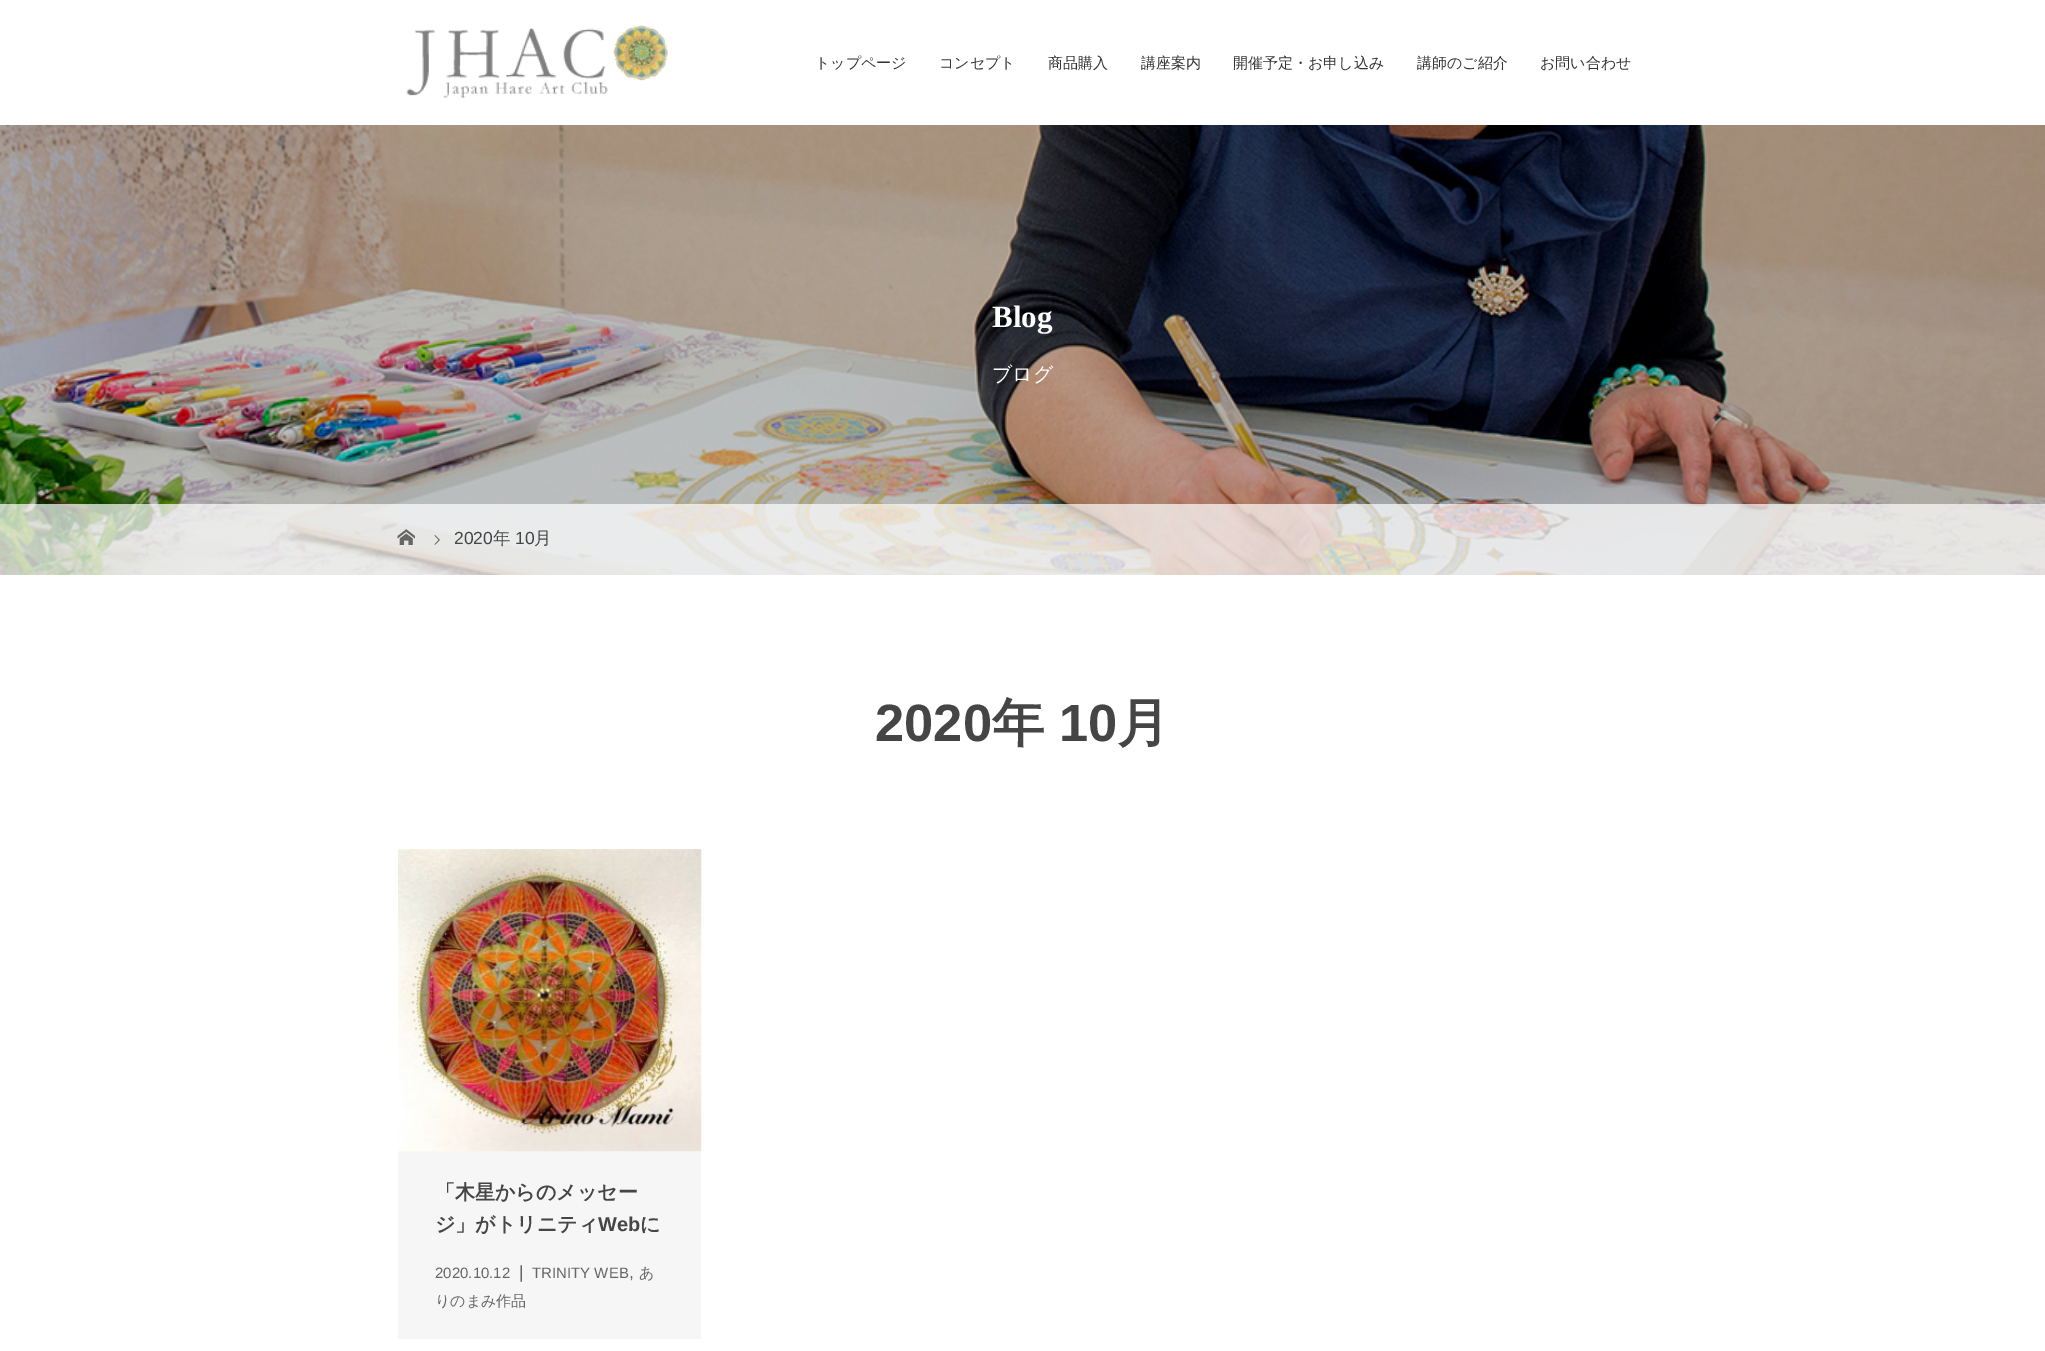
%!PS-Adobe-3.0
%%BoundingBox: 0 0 2045 1351
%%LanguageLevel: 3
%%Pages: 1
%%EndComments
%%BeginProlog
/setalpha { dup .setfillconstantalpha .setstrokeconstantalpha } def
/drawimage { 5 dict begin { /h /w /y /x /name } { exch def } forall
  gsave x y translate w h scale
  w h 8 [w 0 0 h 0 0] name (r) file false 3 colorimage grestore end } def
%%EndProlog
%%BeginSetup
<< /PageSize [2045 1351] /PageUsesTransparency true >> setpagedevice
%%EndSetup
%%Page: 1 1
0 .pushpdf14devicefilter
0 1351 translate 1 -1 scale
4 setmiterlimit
1 setgray
0 0 2045 1351 rectfill
(images/1.raw) 406 25 262 73 drawimage
(images/2.raw) 0 125 2045 450 drawimage
0.7 setalpha
0 504 2045 71 rectfill
1 setalpha
(images/3.raw) 397 529 18 16 drawimage
(images/4.raw) 434 535 6 10 drawimage
0.965 setgray
398 849 303 490 rectfill
(images/5.raw) 398 849 304 303 drawimage
/WenQuanYiZenHei-Medium [15 0 0 -15 0 0] selectfont
0.2 setgray
815 68 moveto (トップページ) show
939 68 moveto (コンセプト) show
1048 68 moveto (商品購入) show
1141 68 moveto (講座案内) show
1233 68 moveto (開催予定・お申し込み) show
1417 68 moveto (講師のご紹介) show
1540 68 moveto (お問い合わせ) show
/LiberationSerif-Bold [31 0 0 -31 0 0] selectfont
1 setgray
992 327 moveto (Blog) show
/WenQuanYiZenHei-Medium [20 0 0 -20 0 0] selectfont
992 381 moveto (ブログ) show
/LiberationSans-Regular [17.5 0 0 -17.5 0 0] selectfont
0.271 setgray
454 544 moveto (2020) show
/WenQuanYiZenHei-Medium [17.5 0 0 -17.5 0 0] selectfont
493 544 moveto (年) show
/LiberationSans-Regular [17.5 0 0 -17.5 0 0] selectfont
515 544 moveto (10) show
/WenQuanYiZenHei-Medium [17.5 0 0 -17.5 0 0] selectfont
534 544 moveto (月) show
/LiberationSans-Bold [52.5 0 0 -52.5 0 0] selectfont
875 741 moveto (2020) show
/WenQuanYiZenHei-Bold [52.5 0 0 -52.5 0 0] selectfont
992 741 moveto (年) show
/LiberationSans-Bold [52.5 0 0 -52.5 0 0] selectfont
1059 741 moveto (10) show
/WenQuanYiZenHei-Bold [52.5 0 0 -52.5 0 0] selectfont
1117 741 moveto (月) show
/WenQuanYiZenHei-Bold [20 0 0 -20 0 0] selectfont
435 1199 moveto (「木星からのメッセー) show
435 1231 moveto (ジ」がトリニティ) show
/LiberationSans-Bold [20 0 0 -20 0 0] selectfont
598 1231 moveto (Web) show
/WenQuanYiZenHei-Bold [20 0 0 -20 0 0] selectfont
640 1231 moveto (に) show
/LiberationSans-Regular [15 0 0 -15 0 0] selectfont
0.4 setgray
435 1278 moveto (2020.10.12) show
/LiberationSans-Regular [17.5 0 0 -17.5 0 0] selectfont
519 1278 moveto (|) show
/LiberationSans-Regular [15 0 0 -15 0 0] selectfont
532 1278 moveto (TRINITY WEB) show
/WenQuanYiZenHei-Medium [15 0 0 -15 0 0] selectfont
639 1278 moveto (あ) show
/LiberationSans-Regular [17.5 0 0 -17.5 0 0] selectfont
629 1278 moveto (,) show
/WenQuanYiZenHei-Medium [15 0 0 -15 0 0] selectfont
435 1306 moveto (りのまみ作品) show
.poppdf14devicefilter showpage
%%EOF
